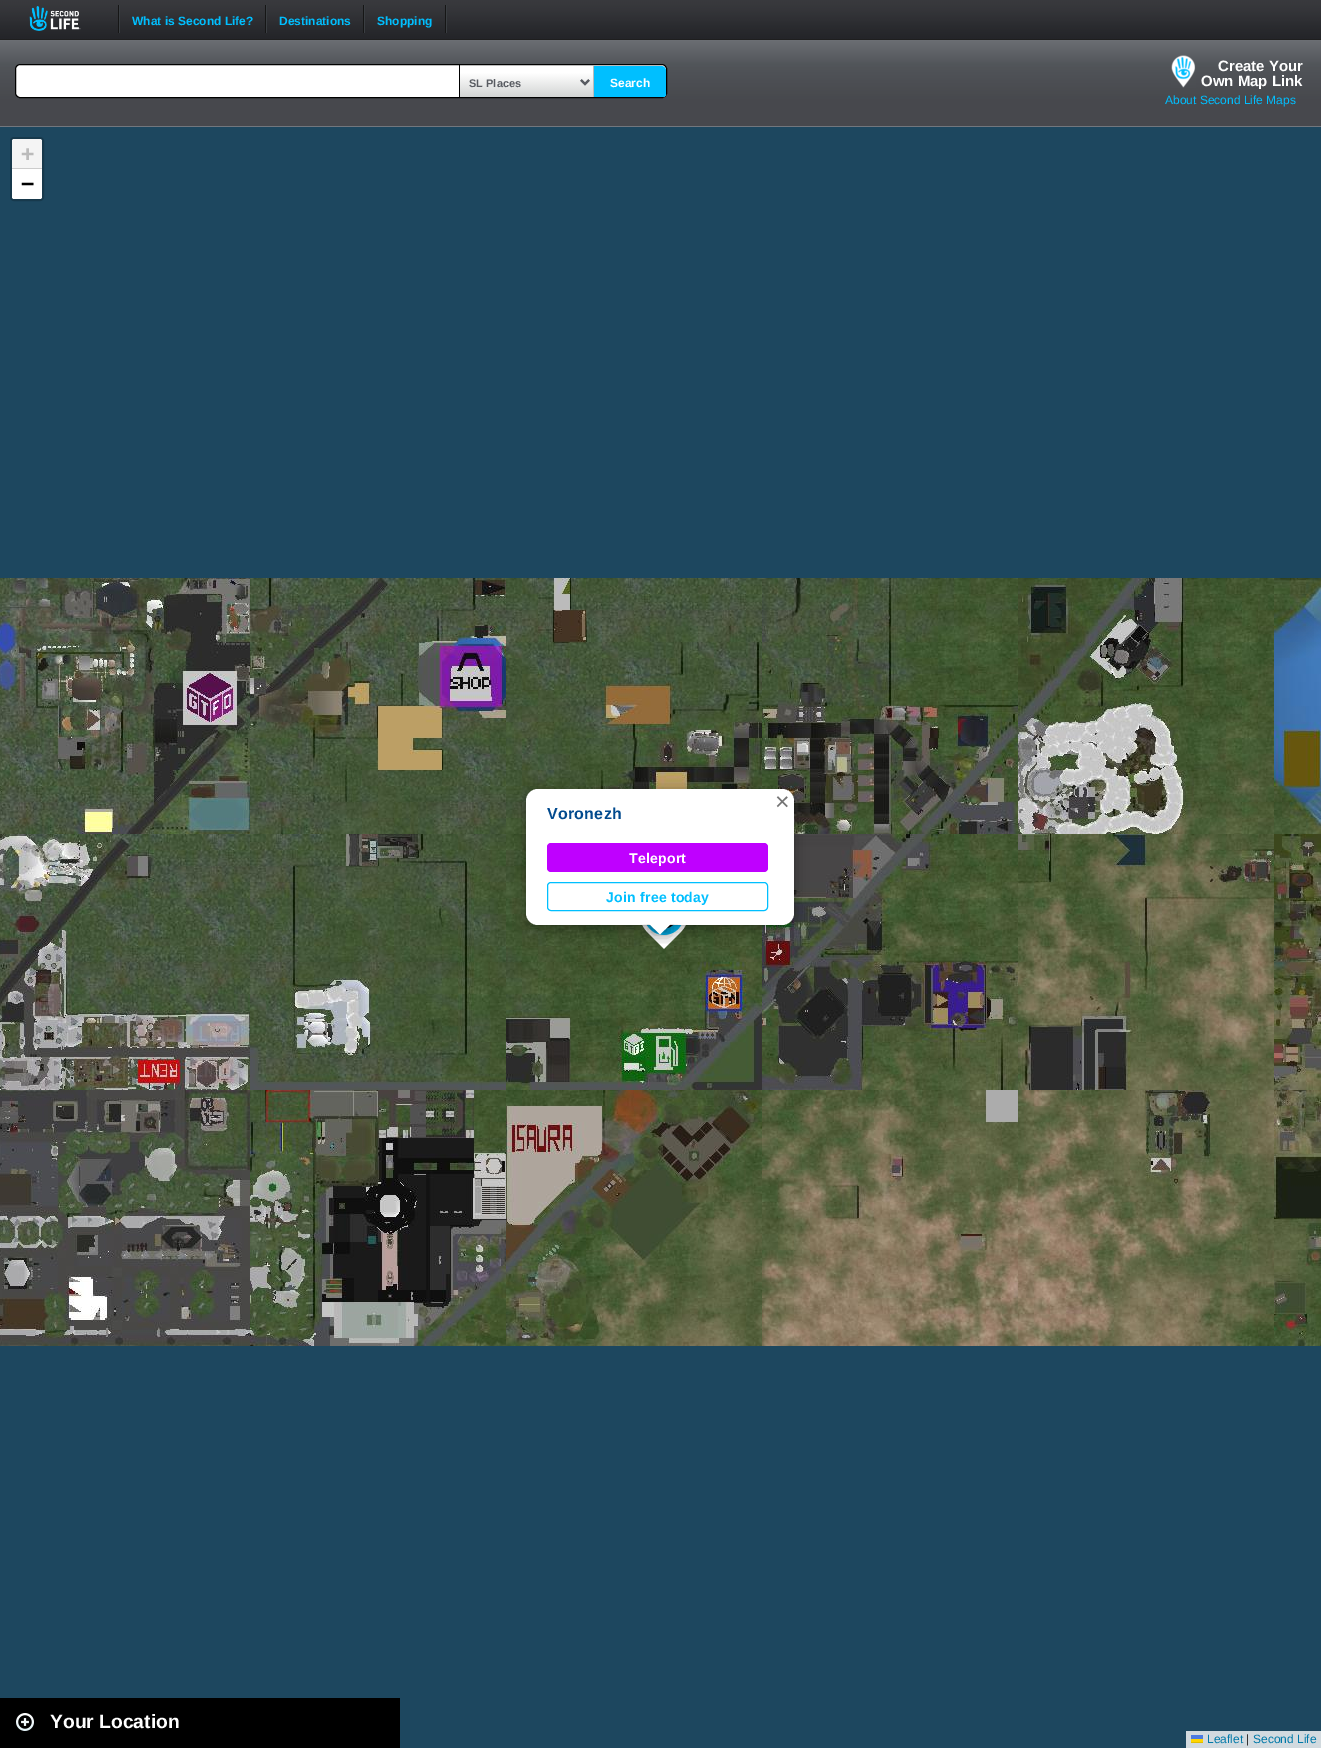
%!PS-Adobe-3.0
%%BoundingBox: 0 0 1321 1748
%%LanguageLevel: 3
%%Pages: 1
%%EndComments
%%BeginProlog
/setalpha { dup .setfillconstantalpha .setstrokeconstantalpha } def
/rrect { 5 dict begin { /r /h /w /y /x } { exch def } forall
  x r add y moveto x w add y 2 copy h add r arct x w add y h add x 1 index r arct
  x y h add x y r arct x y 2 copy exch w add exch r arct closepath end } def
/softshadow { 12 dict begin { /a /b /q /h /w /y /x } { exch def } forall gsave /was 0 def
  9 -2 -9 { dup b mul 4 div /e exch def 1 sub .425 mul 2.718 exch exp 1 add a .99 .min exch div /now exch def
    1 1 now sub 1 was sub div sub setalpha /was now def
    w h .min e 2 mul add 0 gt { x e sub y e sub w e 2 mul add h e 2 mul add
      q e add b .6 mul add w h .min 2 div e add .min 0 .max rrect fill } if } for grestore end } def
/drawimage { 5 dict begin { /h /w /y /x /name } { exch def } forall
  gsave x y translate w h scale
  w h 8 [w 0 0 h 0 0] name (r) file false 3 colorimage grestore end } def
%%EndProlog
%%BeginSetup
<< /PageSize [1321 1748] /PageUsesTransparency true >> setpagedevice
%%EndSetup
%%Page: 1 1
0 .pushpdf14devicefilter
0 1748 translate 1 -1 scale
4 setmiterlimit
0.114 0.278 0.373 setrgbcolor
0 0 1321 1748 rectfill
(images/1.raw) 0 0 1321 40 drawimage
(images/2.raw) 29 6 52 25 drawimage
0.227 0.243 0.259 setrgbcolor
119 5 1 28 rectfill
0.086 setgray
118 5 1 28 rectfill
0.227 0.243 0.259 setrgbcolor
266 5 1 28 rectfill
0.086 setgray
265 5 1 28 rectfill
0.227 0.243 0.259 setrgbcolor
364 5 1 28 rectfill
0.086 setgray
363 5 1 28 rectfill
0.227 0.243 0.259 setrgbcolor
446 5 1 28 rectfill
0.086 setgray
445 5 1 28 rectfill
gsave newpath 0 40 moveto 1321 40 lineto 1321 126 lineto 0 126 lineto closepath clip newpath
<< /ShadingType 2 /ColorSpace /DeviceRGB /Coords [0 126 0 40] /Extend [true true] /Function << /FunctionType 3 /Domain [0 1] /Functions [<< /FunctionType 2 /Domain [0 1] /C0 [0.278 0.282 0.302] /C1 [0.278 0.282 0.302] /N 1 >> << /FunctionType 2 /Domain [0 1] /C0 [0.278 0.282 0.302] /C1 [0.318 0.333 0.349] /N 1 >> << /FunctionType 2 /Domain [0 1] /C0 [0.318 0.333 0.349] /C1 [0.42 0.431 0.451] /N 1 >>] /Bounds [0.29 0.71] /Encode [0 1 0 1 0 1] >> >> shfill grestore
0.447 0.467 0.494 setrgbcolor
0 126 1321 1 rectfill
1 setgray
15.5 64.5 651 33 4.5 rrect gsave fill grestore
0 setgray
stroke
(images/3.raw) 460 66 133 31 drawimage
0.733 setgray
459 65 135 1 rectfill
593 65 1 32 rectfill
0 setgray
459 65 1 32 rectfill
0.349 0.361 0.384 setrgbcolor
2 setlinewidth
newpath 581 80 moveto 585 84 lineto 589 80 lineto stroke
gsave
16 65 650 32 4 rrect clip newpath
0 0.749 1 setrgbcolor
newpath 594 66 moveto 661 66 lineto 664 66 666 68 666 71 curveto 666 95 lineto 666 98 664 100 661 100 curveto 594 100 lineto closepath fill
grestore
(images/4.raw) 1171 55 25 33 drawimage
0.09 0.224 0.298 setrgbcolor
11 138 32 62 3 rrect stroke
0.957 setgray
newpath 14 139 moveto 40 139 lineto 41 139 42 140 42 141 curveto 42 169 lineto 12 169 lineto 12 141 lineto 12 140 13 139 14 139 curveto closepath fill
0.8 setgray
12 168 30 1 rectfill
1 setgray
newpath 12 169 moveto 42 169 lineto 42 197 lineto 42 198 41 199 40 199 curveto 14 199 lineto 13 199 12 198 12 197 curveto closepath fill
0.824 0.855 0.875 setrgbcolor
1186 1731 135 17 rectfill
0.298 0.482 0.882 setrgbcolor
1191 1735 12 4 rectfill
1 0.835 0 setrgbcolor
1191 1739 12 3 rectfill
0.878 0.737 0 setrgbcolor
1191 1742 12 1 rectfill
(images/5.raw) 0 578 250 256 drawimage
(images/6.raw) 250 578 256 256 drawimage
(images/7.raw) 506 578 256 256 drawimage
(images/8.raw) 762 578 256 256 drawimage
(images/9.raw) 1018 578 256 256 drawimage
(images/10.raw) 1274 578 47 256 drawimage
(images/11.raw) 0 834 250 256 drawimage
(images/12.raw) 250 834 256 256 drawimage
(images/13.raw) 506 834 256 256 drawimage
(images/14.raw) 762 834 256 256 drawimage
(images/15.raw) 1018 834 256 256 drawimage
(images/16.raw) 1274 834 47 256 drawimage
(images/17.raw) 0 1090 250 256 drawimage
(images/18.raw) 250 1090 256 256 drawimage
(images/19.raw) 506 1090 256 256 drawimage
(images/20.raw) 762 1090 256 256 drawimage
(images/21.raw) 1018 1090 256 256 drawimage
(images/22.raw) 1274 1090 47 256 drawimage
(images/23.raw) 642 925 44 24 drawimage
0 setgray
526 792 268 136 12 7 0.4 softshadow
1 setgray
526 789 268 136 12 rrect fill
0.749 0 1 setrgbcolor
547 843 221 29 4 rrect fill
0 0.749 1 setrgbcolor
1 setlinewidth
547.5 882.5 220 28 3.5 rrect stroke
gsave
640 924 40 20 rectclip
0 setgray
652 917 17 17 0 7 0.4 softshadow
grestore
gsave
640 924 40 20 rectclip
1 setgray
newpath 660 910.5 moveto 672 922.5 lineto 660 934.5 lineto 648 922.5 lineto closepath fill
grestore
0 setgray
0 1698 400 50 rectfill
(images/24.raw) 16 1713 18 18 drawimage
/LiberationSans-Bold [12 0 0 -12 0 0] selectfont
0 0.749 1 setrgbcolor
132 25 moveto (What is Second Life?) show
279 25 moveto (Destinations) show
377 25 moveto (Shopping) show
/LiberationSans-Bold [11 0 0 -11 0 0] selectfont
0.349 0.361 0.384 setrgbcolor
469 87 moveto (SL Places) show
/LiberationSans-Bold [12 0 0 -12 0 0] selectfont
1 setgray
610 87 moveto (Search) show
/LiberationSans-Bold [15 0 0 -15 0 0] selectfont
1218 71 moveto (Create Your) show
1201 86 moveto (Own Map Link) show
/LiberationSans-Regular [12 0 0 -12 0 0] selectfont
0 0.749 1 setrgbcolor
1165 104 moveto (About Second Life Maps) show
/DejaVuSansMono-Bold [22 0 0 -22 0 0] selectfont
0.733 setgray
21 161 moveto (+) show
0 setgray
21 191 moveto (−) show
/LiberationSans-Regular [12 0 0 -12 0 0] selectfont
0 0.471 0.659 setrgbcolor
1207 1743 moveto (Leaflet) show
0.2 setgray
1246 1743 moveto (|) show
0 0.471 0.659 setrgbcolor
1253 1743 moveto (Second Life) show
/LiberationSans-Regular [25 0 0 -25 0 0] selectfont
0.459 setgray
775 810 moveto (×) show
/LiberationSans-Bold [16 0 0 -16 0 0] selectfont
0.004 0.29 0.557 setrgbcolor
547 819 moveto 0.25 0 (Voronezh) ashow
/LiberationSans-Bold [14 0 0 -14 0 0] selectfont
1 setgray
629 863 moveto 0.25 0 (Teleport) ashow
0 0.749 1 setrgbcolor
606 902 moveto 0.25 0 (Join free today) ashow
/LiberationSans-Bold [19.25 0 0 -19.25 0 0] selectfont
1 setgray
50 1728 moveto (Your Location) show
.poppdf14devicefilter showpage
%%EOF
